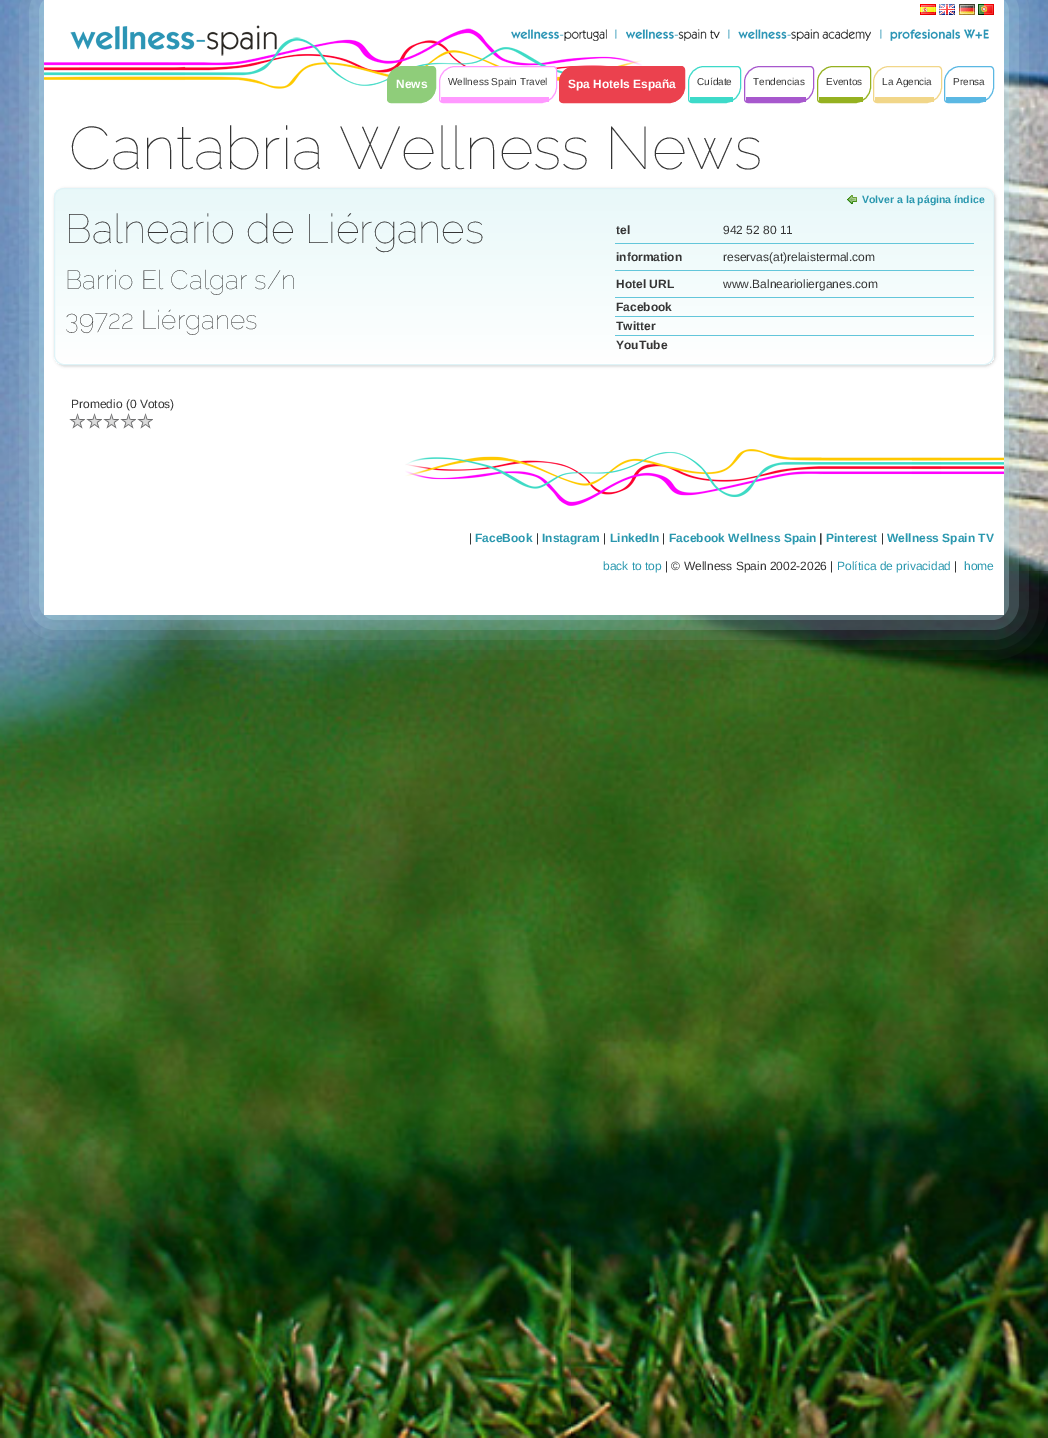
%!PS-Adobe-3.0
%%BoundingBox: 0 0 1048 1438
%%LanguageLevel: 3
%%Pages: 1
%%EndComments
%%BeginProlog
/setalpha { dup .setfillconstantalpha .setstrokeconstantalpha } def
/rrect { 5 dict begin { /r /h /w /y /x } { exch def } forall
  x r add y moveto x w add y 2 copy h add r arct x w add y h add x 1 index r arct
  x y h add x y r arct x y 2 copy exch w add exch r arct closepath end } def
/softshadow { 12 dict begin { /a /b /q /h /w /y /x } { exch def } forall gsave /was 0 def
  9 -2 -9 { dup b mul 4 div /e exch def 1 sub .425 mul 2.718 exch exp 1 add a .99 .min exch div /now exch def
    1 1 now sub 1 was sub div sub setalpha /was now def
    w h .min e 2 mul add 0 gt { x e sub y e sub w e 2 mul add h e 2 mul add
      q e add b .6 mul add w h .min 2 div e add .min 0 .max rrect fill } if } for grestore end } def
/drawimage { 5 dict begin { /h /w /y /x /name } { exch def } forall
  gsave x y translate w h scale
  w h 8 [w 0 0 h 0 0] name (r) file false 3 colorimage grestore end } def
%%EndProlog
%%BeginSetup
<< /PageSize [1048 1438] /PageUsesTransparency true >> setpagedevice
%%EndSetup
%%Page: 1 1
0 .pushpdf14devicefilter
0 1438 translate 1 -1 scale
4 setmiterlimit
1 setgray
0 0 1048 1438 rectfill
(images/1.raw) 0 0 1048 1438 drawimage
0.71 0.894 0.933 setrgbcolor
44 0 960 615 0 20 1 softshadow
1 setgray
44 0 960 615 rectfill
(images/2.raw) 44 25 598 64 drawimage
(images/3.raw) 920 4 16 11 drawimage
(images/4.raw) 939 4 16 11 drawimage
(images/5.raw) 959 4 16 11 drawimage
(images/6.raw) 978 4 16 11 drawimage
(images/7.raw) 511 29 96 12 drawimage
(images/8.raw) 615 29 2 10 drawimage
(images/9.raw) 626 29 94 12 drawimage
(images/8.raw) 728 29 2 10 drawimage
(images/10.raw) 738 29 133 12 drawimage
(images/8.raw) 880 29 2 10 drawimage
(images/11.raw) 890 29 99 12 drawimage
0.561 0.804 0.478 setrgbcolor
newpath 403 66.5 moveto 432 66.5 lineto 434 66.5 435.5 68 435.5 70 curveto 435.5 87 lineto 435.5 95.5 428.5 102.5 420 102.5 curveto 391 102.5 lineto 389 102.5 387.5 101 387.5 99 curveto 387.5 82 lineto 387.5 73.5 394.5 66.5 403 66.5 curveto closepath gsave fill grestore
stroke
1 setgray
newpath 455 67 moveto 553 67 lineto 555 67 556 68 556 70 curveto 556 87 lineto 556 93 549 97 541 97 curveto 440 97 lineto 440 82 lineto 440 74 447 67 455 67 curveto closepath fill
1 0.6 1 setrgbcolor
newpath 455 66.5 moveto 553 66.5 lineto 555 66.5 556.5 68 556.5 70 curveto 556.5 87 lineto 556.5 95.5 549.5 102.5 541 102.5 curveto 443 102.5 lineto 441 102.5 439.5 101 439.5 99 curveto 439.5 82 lineto 439.5 73.5 446.5 66.5 455 66.5 curveto closepath stroke
441 97 108 5 rectfill
0.922 0.255 0.306 setrgbcolor
newpath 575 66.5 moveto 681 66.5 lineto 683 66.5 684.5 68 684.5 70 curveto 684.5 87 lineto 684.5 95.5 677.5 102.5 669 102.5 curveto 563 102.5 lineto 561 102.5 559.5 101 559.5 99 curveto 559.5 82 lineto 559.5 73.5 566.5 66.5 575 66.5 curveto closepath gsave fill grestore
stroke
0.239 0.855 0.788 setrgbcolor
newpath 704 66.5 moveto 737 66.5 lineto 739 66.5 740.5 68 740.5 70 curveto 740.5 87 lineto 740.5 95.5 733.5 102.5 725 102.5 curveto 692 102.5 lineto 690 102.5 688.5 101 688.5 99 curveto 688.5 82 lineto 688.5 73.5 695.5 66.5 704 66.5 curveto closepath stroke
690 97 43 5 rectfill
0.655 0.345 0.804 setrgbcolor
newpath 760 66.5 moveto 810 66.5 lineto 812 66.5 813.5 68 813.5 70 curveto 813.5 87 lineto 813.5 95.5 806.5 102.5 798 102.5 curveto 748 102.5 lineto 746 102.5 744.5 101 744.5 99 curveto 744.5 82 lineto 744.5 73.5 751.5 66.5 760 66.5 curveto closepath stroke
746 97 60 5 rectfill
0.584 0.694 0.125 setrgbcolor
newpath 833 66.5 moveto 867 66.5 lineto 869 66.5 870.5 68 870.5 70 curveto 870.5 87 lineto 870.5 95.5 863.5 102.5 855 102.5 curveto 821 102.5 lineto 819 102.5 817.5 101 817.5 99 curveto 817.5 82 lineto 817.5 73.5 824.5 66.5 833 66.5 curveto closepath stroke
819 97 44 5 rectfill
0.945 0.839 0.537 setrgbcolor
newpath 889 66.5 moveto 938 66.5 lineto 940 66.5 941.5 68 941.5 70 curveto 941.5 87 lineto 941.5 95.5 934.5 102.5 926 102.5 curveto 877 102.5 lineto 875 102.5 873.5 101 873.5 99 curveto 873.5 82 lineto 873.5 73.5 880.5 66.5 889 66.5 curveto closepath stroke
875 97 59 5 rectfill
0.357 0.722 0.89 setrgbcolor
newpath 960 66.5 moveto 990 66.5 lineto 992 66.5 993.5 68 993.5 70 curveto 993.5 87 lineto 993.5 95.5 986.5 102.5 978 102.5 curveto 948 102.5 lineto 946 102.5 944.5 101 944.5 99 curveto 944.5 82 lineto 944.5 73.5 951.5 66.5 960 66.5 curveto closepath stroke
946 97 40 5 rectfill
0 setgray
55 189 940 177 10 1.5 0.2 softshadow
gsave
54 188 940 177 10 rrect clip newpath
gsave newpath 54 189 moveto 994 189 lineto 994 364 lineto 54 364 lineto closepath clip newpath
<< /ShadingType 2 /ColorSpace /DeviceRGB /Coords [524 189 524 364] /Extend [true true] /Function << /FunctionType 3 /Domain [0 1] /Functions [<< /FunctionType 2 /Domain [0 1] /C0 [0.91 0.973 0.976] /C1 [0.91 0.973 0.976] /N 1 >> << /FunctionType 2 /Domain [0 1] /C0 [0.91 0.973 0.976] /C1 [1 1 1] /N 1 >>] /Bounds [0.01] /Encode [0 1 0 1] >> >> shfill grestore
grestore
0.875 0.953 0.969 setrgbcolor
54.5 188.5 939 176 9.5 rrect stroke
(images/12.raw) 847 195 10 10 drawimage
0.388 0.776 0.855 setrgbcolor
615 243 359 1 rectfill
615 270 359 1 rectfill
615 297 359 1 rectfill
615 316 359 1 rectfill
615 335 359 1 rectfill
(images/13.raw) 69 413 16 16 drawimage
(images/13.raw) 86 413 16 16 drawimage
(images/13.raw) 103 413 16 16 drawimage
(images/13.raw) 120 413 16 16 drawimage
(images/13.raw) 137 413 16 16 drawimage
(images/14.raw) 405 449 599 57 drawimage
/LiberationSans-Bold [12 0 0 -12 0 0] selectfont
1 setgray
396 88 moveto (News) show
/LiberationSans-Regular [10 0 0 -10 0 0] selectfont
0.208 setgray
448 85 moveto (Wellness Spain Travel) show
/LiberationSans-Bold [12 0 0 -12 0 0] selectfont
1 setgray
568 88 moveto (Spa Hotels España) show
/LiberationSans-Regular [10 0 0 -10 0 0] selectfont
0.208 setgray
697 85 moveto (Cuídate) show
753 85 moveto (Tendencias) show
826 85 moveto (Eventos) show
882 85 moveto (La Agencia) show
953 85 moveto (Prensa) show
/Raleway-Thin [60 0 0 -60 0 0] selectfont
69 169 moveto (Cantabria Wellness News) show
/LiberationSans-Bold [10.5 0 0 -10.5 0 0] selectfont
0.161 0.592 0.682 setrgbcolor
862 203 moveto (Volver a la página índice) show
/Raleway-Thin [40.75 0 0 -40.75 0 0] selectfont
0.208 setgray
65 243 moveto (Balneario de Liérganes) show
/Raleway-Thin [26.5 0 0 -26.5 0 0] selectfont
65 289 moveto (Barrio El Calgar s/n) show
65 329 moveto (39722 Liérganes) show
/LiberationSans-Bold [12 0 0 -12 0 0] selectfont
616 234 moveto (tel) show
/LiberationSans-Regular [12 0 0 -12 0 0] selectfont
723 234 moveto (942 52 80 11) show
/LiberationSans-Bold [12 0 0 -12 0 0] selectfont
616 261 moveto (information) show
/LiberationSans-Regular [12 0 0 -12 0 0] selectfont
723 261 moveto (reservas\(at\)relaistermal.com) show
/LiberationSans-Bold [12 0 0 -12 0 0] selectfont
616 288 moveto (Hotel URL) show
/LiberationSans-Regular [12 0 0 -12 0 0] selectfont
723 288 moveto (www.Balneariolierganes.com) show
/LiberationSans-Bold [12 0 0 -12 0 0] selectfont
616 311 moveto (Facebook) show
616 330 moveto (Twitter) show
616 349 moveto (YouTube) show
/LiberationSans-Regular [12 0 0 -12 0 0] selectfont
71 408 moveto (Promedio \(0 Votos\)) show
469 542 moveto (|) show
/LiberationSans-Bold [12 0 0 -12 0 0] selectfont
0.161 0.592 0.682 setrgbcolor
475 542 moveto (FaceBook) show
/LiberationSans-Regular [12 0 0 -12 0 0] selectfont
0.208 setgray
536 542 moveto (|) show
/LiberationSans-Bold [12 0 0 -12 0 0] selectfont
0.161 0.592 0.682 setrgbcolor
542 542 moveto (Instagram) show
/LiberationSans-Regular [12 0 0 -12 0 0] selectfont
0.208 setgray
603 542 moveto (|) show
/LiberationSans-Bold [12 0 0 -12 0 0] selectfont
0.161 0.592 0.682 setrgbcolor
610 542 moveto (LinkedIn) show
/LiberationSans-Regular [12 0 0 -12 0 0] selectfont
0.208 setgray
662 542 moveto (|) show
/LiberationSans-Bold [12 0 0 -12 0 0] selectfont
0.161 0.592 0.682 setrgbcolor
669 542 moveto (Facebook Wellness Spain) show
0.208 setgray
819 542 moveto (|) show
0.161 0.592 0.682 setrgbcolor
826 542 moveto (Pinterest) show
/LiberationSans-Regular [12 0 0 -12 0 0] selectfont
0.208 setgray
881 542 moveto (|) show
/LiberationSans-Bold [12 0 0 -12 0 0] selectfont
0.161 0.592 0.682 setrgbcolor
887 542 moveto (Wellness Spain TV) show
/LiberationSans-Regular [12 0 0 -12 0 0] selectfont
603 570 moveto (back to top) show
0.208 setgray
665 570 moveto (| © Wellness Spain 2002-2026 |) show
0.161 0.592 0.682 setrgbcolor
837 570 moveto (Política de privacidad) show
0.208 setgray
954 570 moveto (|) show
0.161 0.592 0.682 setrgbcolor
964 570 moveto (home) show
.poppdf14devicefilter showpage
%%EOF
